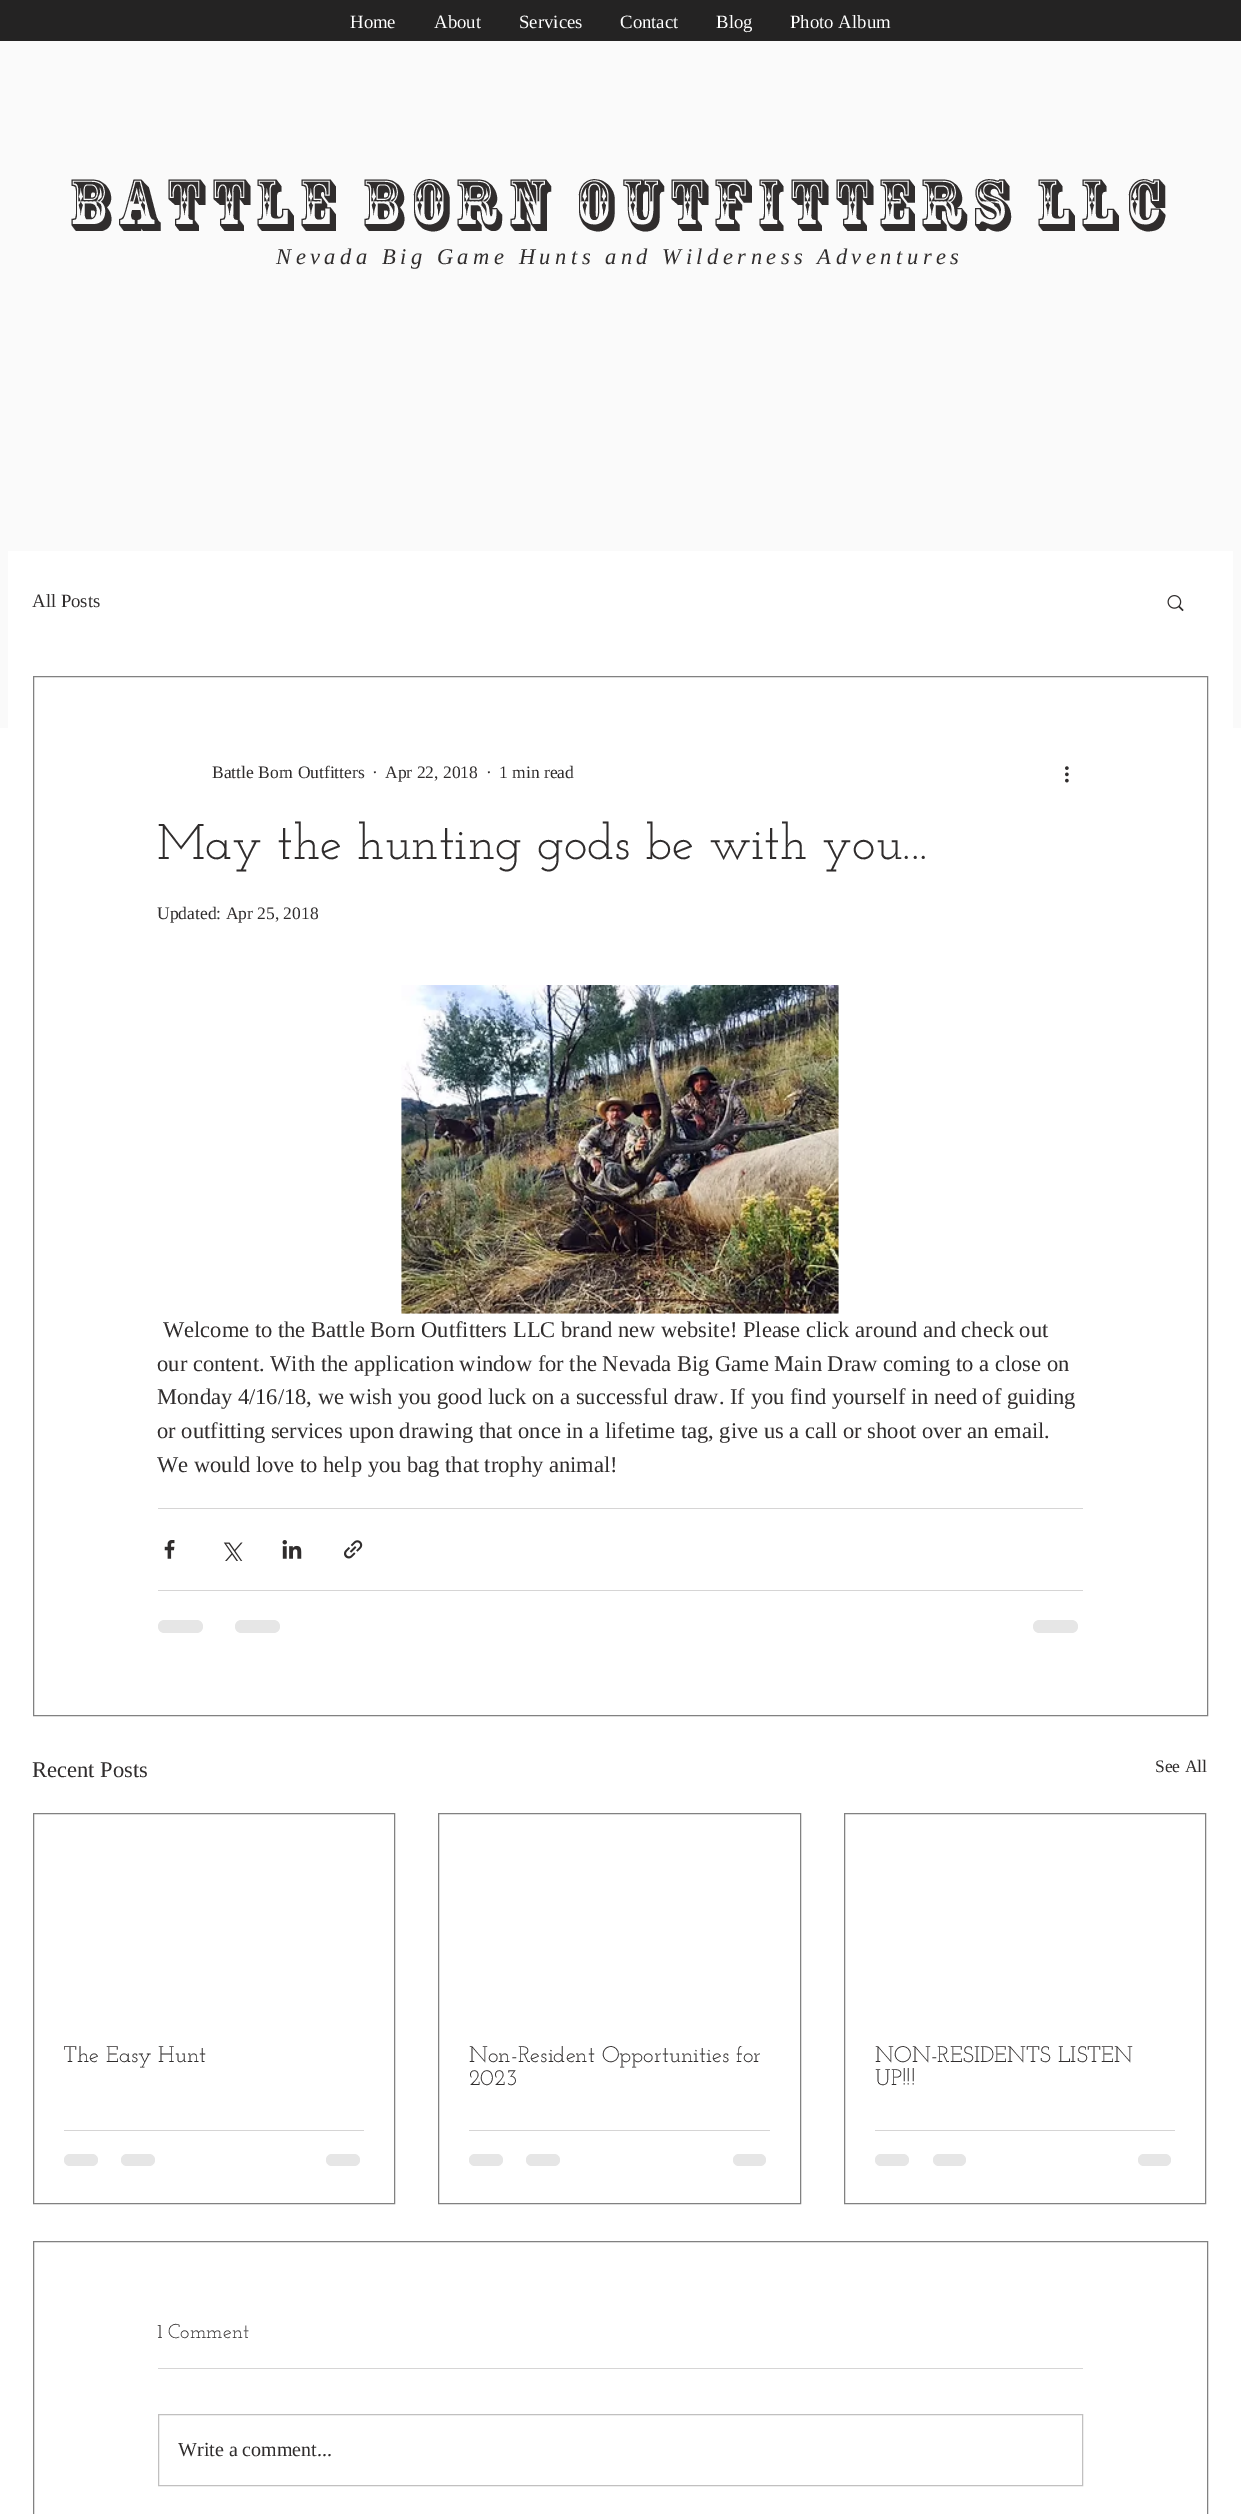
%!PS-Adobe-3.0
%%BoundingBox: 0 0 1241 2514
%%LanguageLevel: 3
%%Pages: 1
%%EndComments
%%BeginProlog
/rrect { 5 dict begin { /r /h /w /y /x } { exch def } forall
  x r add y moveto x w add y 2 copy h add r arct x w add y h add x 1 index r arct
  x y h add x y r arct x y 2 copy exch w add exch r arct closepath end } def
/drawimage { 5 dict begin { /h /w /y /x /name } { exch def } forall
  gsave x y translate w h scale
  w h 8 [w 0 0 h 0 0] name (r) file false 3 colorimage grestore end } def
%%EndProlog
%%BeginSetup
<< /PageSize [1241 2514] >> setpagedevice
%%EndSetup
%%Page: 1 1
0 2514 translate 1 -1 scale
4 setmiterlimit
1 setgray
0 0 1241 2514 rectfill
0.141 0.137 0.137 setrgbcolor
0 0 1241 41 rectfill
0.98 setgray
0 41 1241 687 rectfill
1 setgray
8 551 1225 177 rectfill
(images/1.raw) 1167 595 17 17 drawimage
0.506 setgray
33.5 676.5 1174 1039 rectstroke
(images/2.raw) 1065 766 4 17 drawimage
(images/3.raw) 401 985 438 329 drawimage
0.839 0.835 0.835 setrgbcolor
158 1508 925 1 rectfill
(images/4.raw) 164 1540 11 19 drawimage
(images/5.raw) 223 1542 20 19 drawimage
(images/6.raw) 282 1540 20 19 drawimage
(images/7.raw) 344 1540 19 19 drawimage
158 1590 925 1 rectfill
0.902 setgray
158 1620 45 13 6.5 rrect fill
235 1620 45 13 6.5 rrect fill
1033 1620 45 13 6.5 rrect fill
0.506 setgray
33.5 1813.5 361 390 rectstroke
0.839 0.835 0.835 setrgbcolor
64 2130 300 1 rectfill
0.902 setgray
64 2154 34 12 6 rrect fill
121 2154 34 12 6 rrect fill
326 2154 34 12 6 rrect fill
0.506 setgray
438.5 1813.5 362 390 rectstroke
0.839 0.835 0.835 setrgbcolor
469 2130 301 1 rectfill
0.902 setgray
469 2154 34 12 6 rrect fill
526 2154 34 12 6 rrect fill
733 2154 33 12 6 rrect fill
0.506 setgray
844.5 1813.5 361 390 rectstroke
0.839 0.835 0.835 setrgbcolor
875 2130 300 1 rectfill
0.902 setgray
875 2154 34 12 6 rrect fill
933 2154 33 12 6 rrect fill
1138 2154 33 12 6 rrect fill
0.506 setgray
33.5 2241.5 1174 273 rectstroke
0.839 0.835 0.835 setrgbcolor
158 2368 925 1 rectfill
0.757 0.753 0.753 setrgbcolor
158.5 2414.5 924 71 rectstroke
/LiberationSerif-Regular [18.75 0 0 -18.75 0 0] selectfont
1 setgray
350 28 moveto (Home) show
434 28 moveto (About) show
519 28 moveto (Services) show
620 28 moveto (Contact) show
716 28 moveto (Blog) show
790 28 moveto (Photo Album) show
/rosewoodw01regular-Regular [68.75 0 0 -68.75 0 0] selectfont
0.188 0.176 0.176 setrgbcolor
69 224 moveto 6.9 0 (Battle born outfitters llc) ashow
/LiberationSerif-Italic [22.5 0 0 -22.5 0 0] selectfont
276 264 moveto 4.5 0 (Nevada Big Game Hunts and Wilderness Adventures) ashow
/LiberationSerif-Regular [18.75 0 0 -18.75 0 0] selectfont
32 607 moveto (All Posts) show
/LiberationSerif-Regular [17.5 0 0 -17.5 0 0] selectfont
212 778 moveto (Battle Born Outfitters) show
372 778 moveto (·) show
385 778 moveto (Apr 22, 2018) show
486 778 moveto (·) show
499 778 moveto (1 min read) show
/JosefinSlab-Regular [50 0 0 -50 0 0] selectfont
157 859 moveto (May the hunting gods be with you...) show
/LiberationSerif-Regular [17.5 0 0 -17.5 0 0] selectfont
157 919 moveto (Updated: Apr 25, 2018) show
/LiberationSerif-Regular [22.5 0 0 -22.5 0 0] selectfont
163 1337 moveto (Welcome to the Battle Born Outfitters LLC brand new website! Please click around and check out) show
157 1371 moveto (our content. With the application window for the Nevada Big Game Main Draw coming to a close on) show
157 1404 moveto (Monday 4/16/18, we wish you good luck on a successful draw. If you find yourself in need of guiding) show
157 1438 moveto (or outfitting services upon drawing that once in a lifetime tag, give us a call or shoot over an email.) show
157 1472 moveto (We would love to help you bag that trophy animal!) show
32 1777 moveto (Recent Posts) show
/LiberationSerif-Regular [17.5 0 0 -17.5 0 0] selectfont
1155 1772 moveto (See All) show
gsave
64 2046 300 23 rectclip
/JosefinSlab-Regular [22.5 0 0 -22.5 0 0] selectfont
63 2062 moveto (The Easy Hunt) show
grestore
gsave
469 2046 301 45 rectclip
/JosefinSlab-Regular [22.5 0 0 -22.5 0 0] selectfont
469 2062 moveto (Non-Resident Opportunities for) show
grestore
/JosefinSlab-Regular [22.5 0 0 -22.5 0 0] selectfont
469 2085 moveto (2023) show
875 2062 moveto (NON-RESIDENTS LISTEN) show
875 2085 moveto (UP!!!) show
/JosefinSlab-Regular [20 0 0 -20 0 0] selectfont
157 2338 moveto (1 Comment) show
/LiberationSerif-Regular [20 0 0 -20 0 0] selectfont
178 2456 moveto (Write a comment...) show
showpage
%%EOF
